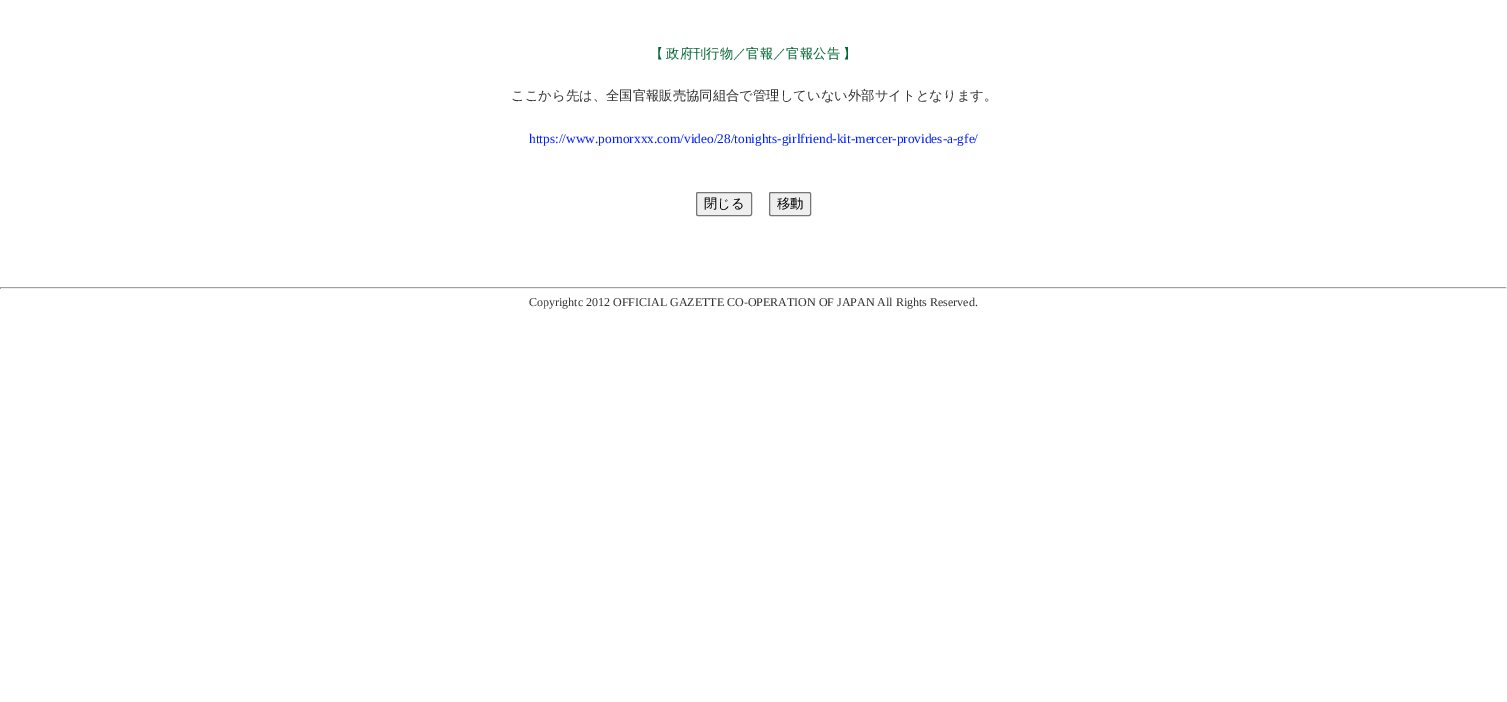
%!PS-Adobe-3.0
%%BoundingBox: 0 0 1507 702
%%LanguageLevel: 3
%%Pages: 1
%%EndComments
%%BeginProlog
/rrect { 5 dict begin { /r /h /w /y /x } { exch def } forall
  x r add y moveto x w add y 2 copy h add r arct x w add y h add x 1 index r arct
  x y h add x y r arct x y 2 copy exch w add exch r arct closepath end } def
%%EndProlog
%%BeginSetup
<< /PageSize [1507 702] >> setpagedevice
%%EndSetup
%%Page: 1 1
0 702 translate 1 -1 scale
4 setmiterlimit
1 setgray
0 0 1507 702 rectfill
0.937 setgray
696.5 192.5 55 23 1.5 rrect gsave fill grestore
0.463 setgray
stroke
0.937 setgray
769.5 192.5 41 23 1.5 rrect gsave fill grestore
0.463 setgray
stroke
0.624 setgray
0 287 1507 1 rectfill
0.933 setgray
1506 287 1 2 rectfill
0 288 1507 1 rectfill
0.624 setgray
0 287 1 2 rectfill
/WenQuanYiZenHei-Medium [13.35 0 0 -13.35 0 0] selectfont
0 0.4 0.2 setrgbcolor
650 58 moveto -1 0 32 (【 政府刊行物／官報／官報公告 】) widthshow
0.2 setgray
511 100 moveto (ここから先は、全国官報販売協同組合で管理していない外部サイトとなります。) show
/LiberationSerif-Regular [13.35 0 0 -13.35 0 0] selectfont
0 0.118 1 setrgbcolor
529 143 moveto (https://www.pornorxxx.com/video/28/tonights-girlfriend-kit-mercer-provides-a-gfe/) show
/WenQuanYiZenHei-Medium [13.35 0 0 -13.35 0 0] selectfont
0 setgray
704 208 moveto (閉じる) show
777 208 moveto (移動) show
/LiberationSerif-Regular [12 0 0 -12 0 0] selectfont
0.2 setgray
529 306 moveto (Copyrightc 2012 OFFICIAL GAZETTE CO-OPERATION OF JAPAN All Rights Reserved.) show
showpage
%%EOF
